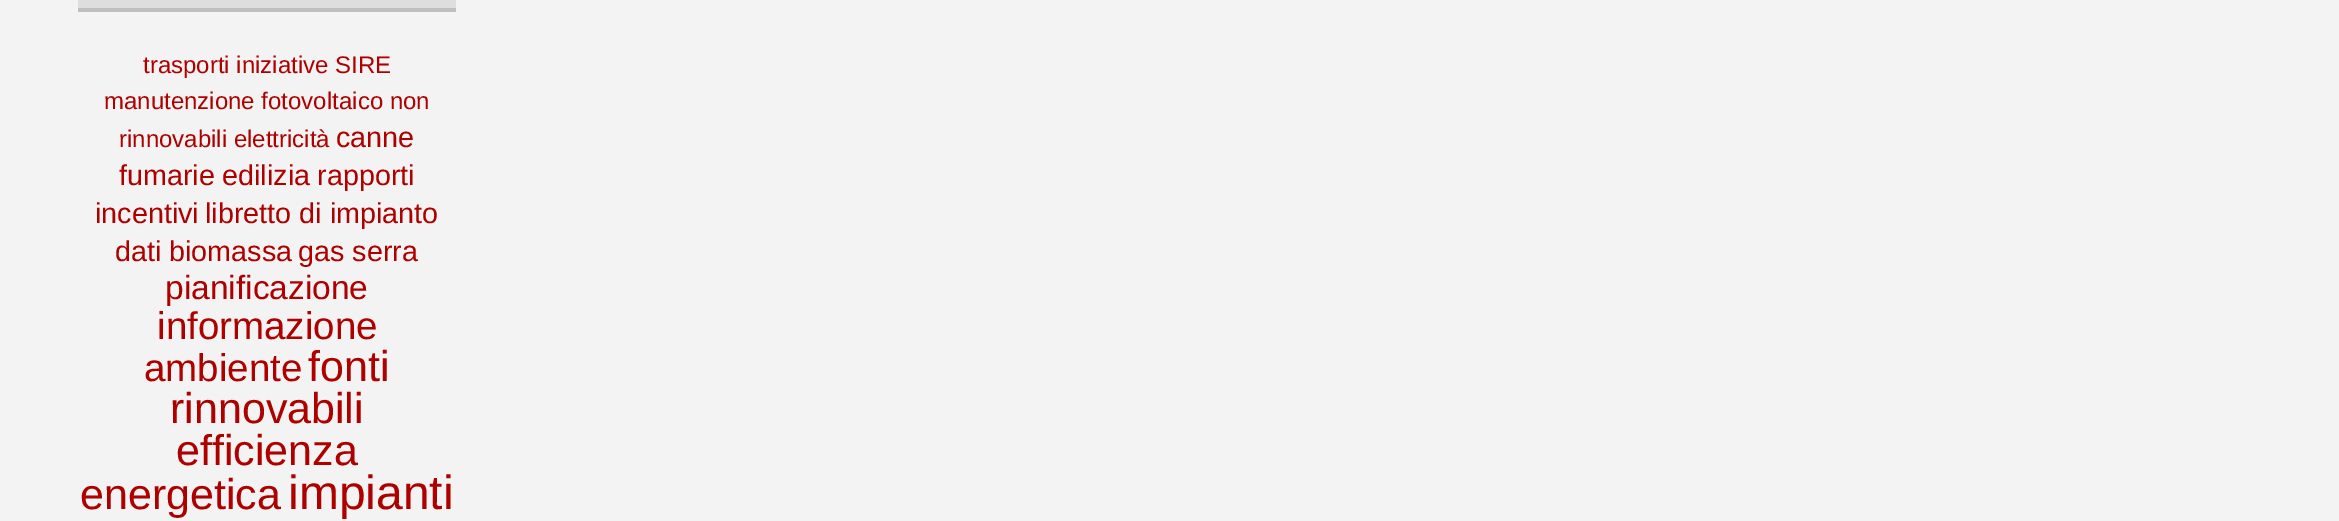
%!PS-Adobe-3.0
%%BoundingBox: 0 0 2339 521
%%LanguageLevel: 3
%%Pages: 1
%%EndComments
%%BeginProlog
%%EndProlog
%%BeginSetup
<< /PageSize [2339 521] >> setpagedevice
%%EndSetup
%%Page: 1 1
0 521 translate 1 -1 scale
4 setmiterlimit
0.953 setgray
0 0 2339 521 rectfill
0.871 setgray
78 0 378 8 rectfill
0.749 setgray
78 8 378 4 rectfill
/LiberationSans-Regular [24 0 0 -24 0 0] selectfont
0.686 0 0 setrgbcolor
143 73 moveto (trasporti iniziative SIRE) show
104 109 moveto (manutenzione fotovoltaico non) show
119 147 moveto (rinnovabili elettricità) show
/LiberationSans-Regular [28.75 0 0 -28.75 0 0] selectfont
336 147 moveto (canne) show
119 185 moveto (fumarie) show
222 185 moveto (edilizia) show
317 185 moveto (rapporti) show
95 223 moveto (incentivi) show
205 223 moveto (libretto di impianto) show
115 261 moveto (dati) show
169 261 moveto (biomassa) show
298 261 moveto (gas serra) show
/LiberationSans-Regular [33.5 0 0 -33.5 0 0] selectfont
165 299 moveto (pianificazione) show
/LiberationSans-Regular [38.5 0 0 -38.5 0 0] selectfont
157 339 moveto (informazione) show
144 381 moveto (ambiente) show
/LiberationSans-Regular [43 0 0 -43 0 0] selectfont
308 381 moveto (fonti) show
170 423 moveto (rinnovabili) show
176 465 moveto (efficienza) show
80 509 moveto (energetica) show
/LiberationSans-Regular [48 0 0 -48 0 0] selectfont
288 509 moveto (impianti) show
showpage
%%EOF
